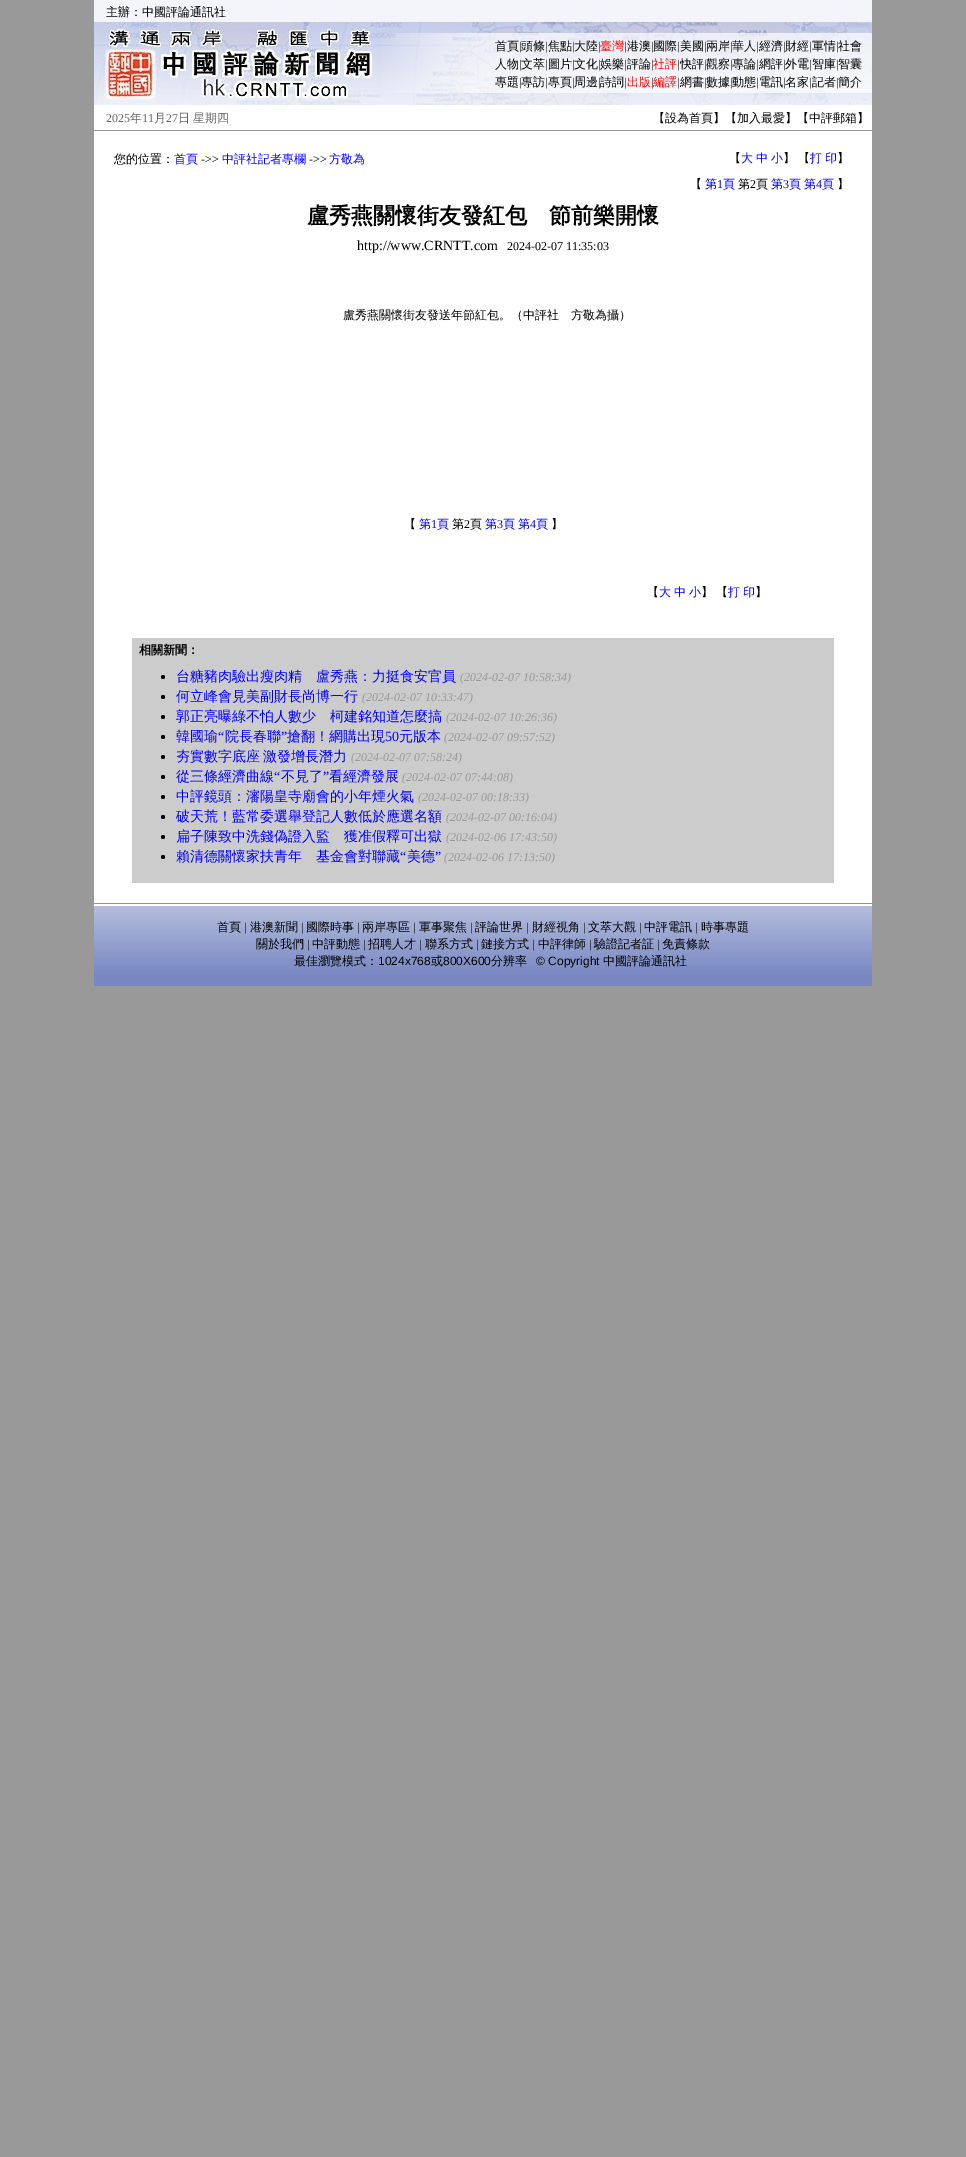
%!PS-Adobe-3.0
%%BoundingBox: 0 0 966 2157
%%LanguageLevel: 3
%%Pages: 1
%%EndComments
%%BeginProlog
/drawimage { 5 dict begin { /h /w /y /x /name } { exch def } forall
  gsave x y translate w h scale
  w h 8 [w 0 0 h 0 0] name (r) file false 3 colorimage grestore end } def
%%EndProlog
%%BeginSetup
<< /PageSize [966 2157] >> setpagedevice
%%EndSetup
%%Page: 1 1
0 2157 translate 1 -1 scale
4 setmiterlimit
0.6 setgray
0 0 966 2157 rectfill
(images/1.raw) 94 0 778 105 drawimage
1 setgray
94 105 778 25 rectfill
94 131 778 772 rectfill
0.8 setgray
132 638 702 245 rectfill
0 setgray
newpath 163 677 2 0 360 arc closepath fill
newpath 163 697 2 0 360 arc closepath fill
newpath 163 717 2 0 360 arc closepath fill
newpath 163 737 2 0 360 arc closepath fill
newpath 163 757 2 0 360 arc closepath fill
newpath 163 777 2 0 360 arc closepath fill
newpath 163 797 2 0 360 arc closepath fill
newpath 163 817 2 0 360 arc closepath fill
newpath 163 837 2 0 360 arc closepath fill
newpath 163 857 2 0 360 arc closepath fill
(images/2.raw) 94 903 778 83 drawimage
/WenQuanYiZenHei-Medium [12 0 0 -12 0 0] selectfont
106 16 moveto (主辦：中國評論通訊社) show
495 50 moveto (首頁) show
/LiberationSerif-Regular [12 0 0 -12 0 0] selectfont
519 50 moveto (|) show
/WenQuanYiZenHei-Medium [12 0 0 -12 0 0] selectfont
521 50 moveto (頭條) show
/LiberationSerif-Regular [12 0 0 -12 0 0] selectfont
545 50 moveto (|) show
/WenQuanYiZenHei-Medium [12 0 0 -12 0 0] selectfont
548 50 moveto (焦點) show
/LiberationSerif-Regular [12 0 0 -12 0 0] selectfont
572 50 moveto (|) show
/WenQuanYiZenHei-Medium [12 0 0 -12 0 0] selectfont
574 50 moveto (大陸) show
/LiberationSerif-Regular [12 0 0 -12 0 0] selectfont
598 50 moveto (|) show
/WenQuanYiZenHei-Medium [12 0 0 -12 0 0] selectfont
1 0 0 setrgbcolor
600 50 moveto (臺灣) show
/LiberationSerif-Regular [12 0 0 -12 0 0] selectfont
0 setgray
624 50 moveto (|) show
/WenQuanYiZenHei-Medium [12 0 0 -12 0 0] selectfont
627 50 moveto (港澳) show
/LiberationSerif-Regular [12 0 0 -12 0 0] selectfont
651 50 moveto (|) show
/WenQuanYiZenHei-Medium [12 0 0 -12 0 0] selectfont
653 50 moveto (國際) show
/LiberationSerif-Regular [12 0 0 -12 0 0] selectfont
677 50 moveto (|) show
/WenQuanYiZenHei-Medium [12 0 0 -12 0 0] selectfont
680 50 moveto (美國) show
/LiberationSerif-Regular [12 0 0 -12 0 0] selectfont
704 50 moveto (|) show
/WenQuanYiZenHei-Medium [12 0 0 -12 0 0] selectfont
706 50 moveto (兩岸) show
/LiberationSerif-Regular [12 0 0 -12 0 0] selectfont
730 50 moveto (|) show
/WenQuanYiZenHei-Medium [12 0 0 -12 0 0] selectfont
732 50 moveto (華人) show
/LiberationSerif-Regular [12 0 0 -12 0 0] selectfont
756 50 moveto (|) show
/WenQuanYiZenHei-Medium [12 0 0 -12 0 0] selectfont
759 50 moveto (經濟) show
/LiberationSerif-Regular [12 0 0 -12 0 0] selectfont
783 50 moveto (|) show
/WenQuanYiZenHei-Medium [12 0 0 -12 0 0] selectfont
785 50 moveto (財經) show
/LiberationSerif-Regular [12 0 0 -12 0 0] selectfont
809 50 moveto (|) show
/WenQuanYiZenHei-Medium [12 0 0 -12 0 0] selectfont
812 50 moveto (軍情) show
/LiberationSerif-Regular [12 0 0 -12 0 0] selectfont
836 50 moveto (|) show
/WenQuanYiZenHei-Medium [12 0 0 -12 0 0] selectfont
838 50 moveto (社會) show
495 68 moveto (人物) show
/LiberationSerif-Regular [12 0 0 -12 0 0] selectfont
519 68 moveto (|) show
/WenQuanYiZenHei-Medium [12 0 0 -12 0 0] selectfont
521 68 moveto (文萃) show
/LiberationSerif-Regular [12 0 0 -12 0 0] selectfont
545 68 moveto (|) show
/WenQuanYiZenHei-Medium [12 0 0 -12 0 0] selectfont
548 68 moveto (圖片) show
/LiberationSerif-Regular [12 0 0 -12 0 0] selectfont
572 68 moveto (|) show
/WenQuanYiZenHei-Medium [12 0 0 -12 0 0] selectfont
574 68 moveto (文化) show
/LiberationSerif-Regular [12 0 0 -12 0 0] selectfont
598 68 moveto (|) show
/WenQuanYiZenHei-Medium [12 0 0 -12 0 0] selectfont
600 68 moveto (娛樂) show
/LiberationSerif-Regular [12 0 0 -12 0 0] selectfont
624 68 moveto (|) show
/WenQuanYiZenHei-Medium [12 0 0 -12 0 0] selectfont
627 68 moveto (評論) show
/LiberationSerif-Regular [12 0 0 -12 0 0] selectfont
651 68 moveto (|) show
/WenQuanYiZenHei-Medium [12 0 0 -12 0 0] selectfont
1 0 0 setrgbcolor
653 68 moveto (社評) show
/LiberationSerif-Regular [12 0 0 -12 0 0] selectfont
0 setgray
677 68 moveto (|) show
/WenQuanYiZenHei-Medium [12 0 0 -12 0 0] selectfont
680 68 moveto (快評) show
/LiberationSerif-Regular [12 0 0 -12 0 0] selectfont
704 68 moveto (|) show
/WenQuanYiZenHei-Medium [12 0 0 -12 0 0] selectfont
706 68 moveto (觀察) show
/LiberationSerif-Regular [12 0 0 -12 0 0] selectfont
730 68 moveto (|) show
/WenQuanYiZenHei-Medium [12 0 0 -12 0 0] selectfont
732 68 moveto (專論) show
/LiberationSerif-Regular [12 0 0 -12 0 0] selectfont
756 68 moveto (|) show
/WenQuanYiZenHei-Medium [12 0 0 -12 0 0] selectfont
759 68 moveto (網評) show
/LiberationSerif-Regular [12 0 0 -12 0 0] selectfont
783 68 moveto (|) show
/WenQuanYiZenHei-Medium [12 0 0 -12 0 0] selectfont
785 68 moveto (外電) show
/LiberationSerif-Regular [12 0 0 -12 0 0] selectfont
809 68 moveto (|) show
/WenQuanYiZenHei-Medium [12 0 0 -12 0 0] selectfont
812 68 moveto (智庫) show
/LiberationSerif-Regular [12 0 0 -12 0 0] selectfont
836 68 moveto (|) show
/WenQuanYiZenHei-Medium [12 0 0 -12 0 0] selectfont
838 68 moveto (智囊) show
495 86 moveto (專題) show
/LiberationSerif-Regular [12 0 0 -12 0 0] selectfont
519 86 moveto (|) show
/WenQuanYiZenHei-Medium [12 0 0 -12 0 0] selectfont
521 86 moveto (專訪) show
/LiberationSerif-Regular [12 0 0 -12 0 0] selectfont
545 86 moveto (|) show
/WenQuanYiZenHei-Medium [12 0 0 -12 0 0] selectfont
548 86 moveto (專頁) show
/LiberationSerif-Regular [12 0 0 -12 0 0] selectfont
572 86 moveto (|) show
/WenQuanYiZenHei-Medium [12 0 0 -12 0 0] selectfont
574 86 moveto (周邊) show
/LiberationSerif-Regular [12 0 0 -12 0 0] selectfont
598 86 moveto (|) show
/WenQuanYiZenHei-Medium [12 0 0 -12 0 0] selectfont
600 86 moveto (詩詞) show
/LiberationSerif-Regular [12 0 0 -12 0 0] selectfont
624 86 moveto (|) show
/WenQuanYiZenHei-Medium [12 0 0 -12 0 0] selectfont
1 0 0 setrgbcolor
627 86 moveto (出版) show
/LiberationSerif-Regular [12 0 0 -12 0 0] selectfont
0 setgray
651 86 moveto (|) show
/WenQuanYiZenHei-Medium [12 0 0 -12 0 0] selectfont
1 0 0 setrgbcolor
653 86 moveto (編譯) show
/LiberationSerif-Regular [12 0 0 -12 0 0] selectfont
0 setgray
677 86 moveto (|) show
/WenQuanYiZenHei-Medium [12 0 0 -12 0 0] selectfont
680 86 moveto (網書) show
/LiberationSerif-Regular [12 0 0 -12 0 0] selectfont
704 86 moveto (|) show
/WenQuanYiZenHei-Medium [12 0 0 -12 0 0] selectfont
706 86 moveto (數據) show
/LiberationSerif-Regular [12 0 0 -12 0 0] selectfont
730 86 moveto (|) show
/WenQuanYiZenHei-Medium [12 0 0 -12 0 0] selectfont
732 86 moveto (動態) show
/LiberationSerif-Regular [12 0 0 -12 0 0] selectfont
756 86 moveto (|) show
/WenQuanYiZenHei-Medium [12 0 0 -12 0 0] selectfont
759 86 moveto (電訊) show
/LiberationSerif-Regular [12 0 0 -12 0 0] selectfont
783 86 moveto (|) show
/WenQuanYiZenHei-Medium [12 0 0 -12 0 0] selectfont
785 86 moveto (名家) show
/LiberationSerif-Regular [12 0 0 -12 0 0] selectfont
809 86 moveto (|) show
/WenQuanYiZenHei-Medium [12 0 0 -12 0 0] selectfont
812 86 moveto (記者) show
/LiberationSerif-Regular [12 0 0 -12 0 0] selectfont
836 86 moveto (|) show
/WenQuanYiZenHei-Medium [12 0 0 -12 0 0] selectfont
838 86 moveto (簡介) show
/LiberationSerif-Regular [12 0 0 -12 0 0] selectfont
0.4 setgray
106 122 moveto (2025) show
/WenQuanYiZenHei-Medium [12 0 0 -12 0 0] selectfont
130 122 moveto (年) show
/LiberationSerif-Regular [12 0 0 -12 0 0] selectfont
142 122 moveto (11) show
/WenQuanYiZenHei-Medium [12 0 0 -12 0 0] selectfont
154 122 moveto (月) show
/LiberationSerif-Regular [12 0 0 -12 0 0] selectfont
166 122 moveto (27) show
/WenQuanYiZenHei-Medium [12 0 0 -12 0 0] selectfont
178 122 moveto -1 0 32 (日 星期四) widthshow
0 setgray
653 122 moveto (【設為首頁】【加入最愛】【中評郵箱】) show
114 163 moveto (您的位置：) show
0 0 1 setrgbcolor
174 163 moveto (首頁) show
/LiberationSerif-Regular [12 0 0 -12 0 0] selectfont
0 setgray
201 163 moveto (->>) show
/WenQuanYiZenHei-Medium [12 0 0 -12 0 0] selectfont
0 0 1 setrgbcolor
222 163 moveto (中評社記者專欄) show
/LiberationSerif-Regular [12 0 0 -12 0 0] selectfont
0 setgray
309 163 moveto (->>) show
/WenQuanYiZenHei-Medium [12 0 0 -12 0 0] selectfont
0 0 1 setrgbcolor
329 163 moveto (方敬為) show
0 setgray
729 162 moveto (【) show
0 0 1 setrgbcolor
741 162 moveto (大) show
756 162 moveto (中) show
771 162 moveto (小) show
0 setgray
783 162 moveto (】) show
798 162 moveto (【) show
0 0 1 setrgbcolor
810 162 moveto -1 0 32 (打 印) widthshow
0 setgray
837 162 moveto (】) show
690 188 moveto (【) show
0 0 1 setrgbcolor
705 188 moveto (第) show
/LiberationSerif-Regular [12 0 0 -12 0 0] selectfont
717 188 moveto (1) show
/WenQuanYiZenHei-Medium [12 0 0 -12 0 0] selectfont
723 188 moveto (頁) show
0 setgray
738 188 moveto (第) show
/LiberationSerif-Regular [12 0 0 -12 0 0] selectfont
750 188 moveto (2) show
/WenQuanYiZenHei-Medium [12 0 0 -12 0 0] selectfont
756 188 moveto (頁) show
0 0 1 setrgbcolor
771 188 moveto (第) show
/LiberationSerif-Regular [12 0 0 -12 0 0] selectfont
783 188 moveto (3) show
/WenQuanYiZenHei-Medium [12 0 0 -12 0 0] selectfont
789 188 moveto (頁) show
804 188 moveto (第) show
/LiberationSerif-Regular [12 0 0 -12 0 0] selectfont
816 188 moveto (4) show
/WenQuanYiZenHei-Medium [12 0 0 -12 0 0] selectfont
822 188 moveto (頁) show
0 setgray
837 188 moveto (】) show
/WenQuanYiZenHei-Bold [22 0 0 -22 0 0] selectfont
307 223 moveto (盧秀燕關懷街友發紅包　節前樂開懷) show
/LiberationSerif-Regular [14 0 0 -14 0 0] selectfont
357 250 moveto (http://www.CRNTT.com) show
/LiberationSerif-Regular [12 0 0 -12 0 0] selectfont
507 250 moveto (2024-02-07 11:35:03) show
/WenQuanYiZenHei-Medium [12 0 0 -12 0 0] selectfont
343 319 moveto (盧秀燕關懷街友發送年節紅包。（中評社　方敬為攝）) show
404 528 moveto (【) show
0 0 1 setrgbcolor
419 528 moveto (第) show
/LiberationSerif-Regular [12 0 0 -12 0 0] selectfont
431 528 moveto (1) show
/WenQuanYiZenHei-Medium [12 0 0 -12 0 0] selectfont
437 528 moveto (頁) show
0 setgray
452 528 moveto (第) show
/LiberationSerif-Regular [12 0 0 -12 0 0] selectfont
464 528 moveto (2) show
/WenQuanYiZenHei-Medium [12 0 0 -12 0 0] selectfont
470 528 moveto (頁) show
0 0 1 setrgbcolor
485 528 moveto (第) show
/LiberationSerif-Regular [12 0 0 -12 0 0] selectfont
497 528 moveto (3) show
/WenQuanYiZenHei-Medium [12 0 0 -12 0 0] selectfont
503 528 moveto (頁) show
518 528 moveto (第) show
/LiberationSerif-Regular [12 0 0 -12 0 0] selectfont
530 528 moveto (4) show
/WenQuanYiZenHei-Medium [12 0 0 -12 0 0] selectfont
536 528 moveto (頁) show
0 setgray
551 528 moveto (】) show
647 596 moveto (【) show
0 0 1 setrgbcolor
659 596 moveto (大) show
674 596 moveto (中) show
689 596 moveto (小) show
0 setgray
701 596 moveto (】) show
716 596 moveto (【) show
0 0 1 setrgbcolor
728 596 moveto -1 0 32 (打 印) widthshow
0 setgray
755 596 moveto (】) show
/WenQuanYiZenHei-Bold [12 0 0 -12 0 0] selectfont
139 654 moveto (相關新聞：) show
/WenQuanYiZenHei-Medium [14 0 0 -14 0 0] selectfont
0 0 1 setrgbcolor
176 681 moveto (台糖豬肉驗出瘦肉精　盧秀燕：力挺食安官員) show
/LiberationSerif-Italic [12 0 0 -12 0 0] selectfont
0.6 setgray
460 681 moveto (\(2024-02-07 10:58:34\)) show
/WenQuanYiZenHei-Medium [14 0 0 -14 0 0] selectfont
0 0 1 setrgbcolor
176 701 moveto (何立峰會見美副財長尚博一行) show
/LiberationSerif-Italic [12 0 0 -12 0 0] selectfont
0.6 setgray
362 701 moveto (\(2024-02-07 10:33:47\)) show
/WenQuanYiZenHei-Medium [14 0 0 -14 0 0] selectfont
0 0 1 setrgbcolor
176 721 moveto (郭正亮曝綠不怕人數少　柯建銘知道怎麼搞) show
/LiberationSerif-Italic [12 0 0 -12 0 0] selectfont
0.6 setgray
446 721 moveto (\(2024-02-07 10:26:36\)) show
/WenQuanYiZenHei-Medium [14 0 0 -14 0 0] selectfont
0 0 1 setrgbcolor
176 741 moveto (韓國瑜) show
/LiberationSerif-Regular [14 0 0 -14 0 0] selectfont
218 741 moveto (“) show
/WenQuanYiZenHei-Medium [14 0 0 -14 0 0] selectfont
225 741 moveto (院長春聯) show
/LiberationSerif-Regular [14 0 0 -14 0 0] selectfont
281 741 moveto (”) show
/WenQuanYiZenHei-Medium [14 0 0 -14 0 0] selectfont
287 741 moveto (搶翻！網購出現) show
/LiberationSerif-Regular [14 0 0 -14 0 0] selectfont
385 741 moveto (50) show
/WenQuanYiZenHei-Medium [14 0 0 -14 0 0] selectfont
399 741 moveto (元版本) show
/LiberationSerif-Italic [12 0 0 -12 0 0] selectfont
0.6 setgray
444 741 moveto (\(2024-02-07 09:57:52\)) show
/WenQuanYiZenHei-Medium [14 0 0 -14 0 0] selectfont
0 0 1 setrgbcolor
176 761 moveto -1 0 32 (夯實數字底座 激發增長潛力) widthshow
/LiberationSerif-Italic [12 0 0 -12 0 0] selectfont
0.6 setgray
351 761 moveto (\(2024-02-07 07:58:24\)) show
/WenQuanYiZenHei-Medium [14 0 0 -14 0 0] selectfont
0 0 1 setrgbcolor
176 781 moveto (從三條經濟曲線) show
/LiberationSerif-Regular [14 0 0 -14 0 0] selectfont
274 781 moveto (“) show
/WenQuanYiZenHei-Medium [14 0 0 -14 0 0] selectfont
281 781 moveto (不見了) show
/LiberationSerif-Regular [14 0 0 -14 0 0] selectfont
323 781 moveto (”) show
/WenQuanYiZenHei-Medium [14 0 0 -14 0 0] selectfont
329 781 moveto (看經濟發展) show
/LiberationSerif-Italic [12 0 0 -12 0 0] selectfont
0.6 setgray
402 781 moveto (\(2024-02-07 07:44:08\)) show
/WenQuanYiZenHei-Medium [14 0 0 -14 0 0] selectfont
0 0 1 setrgbcolor
176 801 moveto (中評鏡頭：瀋陽皇寺廟會的小年煙火氣) show
/LiberationSerif-Italic [12 0 0 -12 0 0] selectfont
0.6 setgray
418 801 moveto (\(2024-02-07 00:18:33\)) show
/WenQuanYiZenHei-Medium [14 0 0 -14 0 0] selectfont
0 0 1 setrgbcolor
176 821 moveto (破天荒！藍常委選舉登記人數低於應選名額) show
/LiberationSerif-Italic [12 0 0 -12 0 0] selectfont
0.6 setgray
446 821 moveto (\(2024-02-07 00:16:04\)) show
/WenQuanYiZenHei-Medium [14 0 0 -14 0 0] selectfont
0 0 1 setrgbcolor
176 841 moveto (扁子陳致中洗錢偽證入監　獲准假釋可出獄) show
/LiberationSerif-Italic [12 0 0 -12 0 0] selectfont
0.6 setgray
446 841 moveto (\(2024-02-06 17:43:50\)) show
/WenQuanYiZenHei-Medium [14 0 0 -14 0 0] selectfont
0 0 1 setrgbcolor
176 861 moveto (賴清德關懷家扶青年　基金會對聯藏) show
/LiberationSerif-Regular [14 0 0 -14 0 0] selectfont
400 861 moveto (“) show
/WenQuanYiZenHei-Medium [14 0 0 -14 0 0] selectfont
407 861 moveto (美德) show
/LiberationSerif-Regular [14 0 0 -14 0 0] selectfont
435 861 moveto (”) show
/LiberationSerif-Italic [12 0 0 -12 0 0] selectfont
0.6 setgray
444 861 moveto (\(2024-02-06 17:13:50\)) show
/WenQuanYiZenHei-Medium [12 0 0 -12 0 0] selectfont
0 setgray
217 931 moveto (首頁) show
/LiberationSerif-Regular [12 0 0 -12 0 0] selectfont
244 931 moveto (|) show
/WenQuanYiZenHei-Medium [12 0 0 -12 0 0] selectfont
250 931 moveto (港澳新聞) show
/LiberationSerif-Regular [12 0 0 -12 0 0] selectfont
301 931 moveto (|) show
/WenQuanYiZenHei-Medium [12 0 0 -12 0 0] selectfont
306 931 moveto (國際時事) show
/LiberationSerif-Regular [12 0 0 -12 0 0] selectfont
357 931 moveto (|) show
/WenQuanYiZenHei-Medium [12 0 0 -12 0 0] selectfont
362 931 moveto (兩岸專區) show
/LiberationSerif-Regular [12 0 0 -12 0 0] selectfont
413 931 moveto (|) show
/WenQuanYiZenHei-Medium [12 0 0 -12 0 0] selectfont
419 931 moveto (軍事聚焦) show
/LiberationSerif-Regular [12 0 0 -12 0 0] selectfont
470 931 moveto (|) show
/WenQuanYiZenHei-Medium [12 0 0 -12 0 0] selectfont
475 931 moveto (評論世界) show
/LiberationSerif-Regular [12 0 0 -12 0 0] selectfont
526 931 moveto (|) show
/WenQuanYiZenHei-Medium [12 0 0 -12 0 0] selectfont
532 931 moveto (財經視角) show
/LiberationSerif-Regular [12 0 0 -12 0 0] selectfont
583 931 moveto (|) show
/WenQuanYiZenHei-Medium [12 0 0 -12 0 0] selectfont
588 931 moveto (文萃大觀) show
/LiberationSerif-Regular [12 0 0 -12 0 0] selectfont
639 931 moveto (|) show
/WenQuanYiZenHei-Medium [12 0 0 -12 0 0] selectfont
644 931 moveto (中評電訊) show
/LiberationSerif-Regular [12 0 0 -12 0 0] selectfont
695 931 moveto (|) show
/WenQuanYiZenHei-Medium [12 0 0 -12 0 0] selectfont
701 931 moveto (時事專題) show
256 948 moveto (關於我們) show
/LiberationSerif-Regular [12 0 0 -12 0 0] selectfont
307 948 moveto (|) show
/WenQuanYiZenHei-Medium [12 0 0 -12 0 0] selectfont
312 948 moveto (中評動態) show
/LiberationSerif-Regular [12 0 0 -12 0 0] selectfont
363 948 moveto (|) show
/WenQuanYiZenHei-Medium [12 0 0 -12 0 0] selectfont
368 948 moveto (招聘人才) show
/LiberationSerif-Regular [12 0 0 -12 0 0] selectfont
419 948 moveto (|) show
/WenQuanYiZenHei-Medium [12 0 0 -12 0 0] selectfont
425 948 moveto (聯系方式) show
/LiberationSerif-Regular [12 0 0 -12 0 0] selectfont
476 948 moveto (|) show
/WenQuanYiZenHei-Medium [12 0 0 -12 0 0] selectfont
481 948 moveto (鏈接方式) show
/LiberationSerif-Regular [12 0 0 -12 0 0] selectfont
532 948 moveto (|) show
/WenQuanYiZenHei-Medium [12 0 0 -12 0 0] selectfont
538 948 moveto (中評律師) show
/LiberationSerif-Regular [12 0 0 -12 0 0] selectfont
589 948 moveto (|) show
/WenQuanYiZenHei-Medium [12 0 0 -12 0 0] selectfont
594 948 moveto (驗證記者証) show
/LiberationSerif-Regular [12 0 0 -12 0 0] selectfont
657 948 moveto (|) show
/WenQuanYiZenHei-Medium [12 0 0 -12 0 0] selectfont
662 948 moveto (免責條款) show
294 965 moveto (最佳瀏覽模式：) show
/LiberationSans-Regular [12 0 0 -12 0 0] selectfont
378 965 moveto (1024x768) show
/WenQuanYiZenHei-Medium [12 0 0 -12 0 0] selectfont
431 965 moveto (或) show
/LiberationSans-Regular [12 0 0 -12 0 0] selectfont
443 965 moveto (800X600) show
/WenQuanYiZenHei-Medium [12 0 0 -12 0 0] selectfont
491 965 moveto (分辨率) show
/LiberationSans-Regular [12 0 0 -12 0 0] selectfont
536 965 moveto (© Copyright) show
/WenQuanYiZenHei-Medium [12 0 0 -12 0 0] selectfont
603 965 moveto (中國評論通訊社) show
showpage
%%EOF
